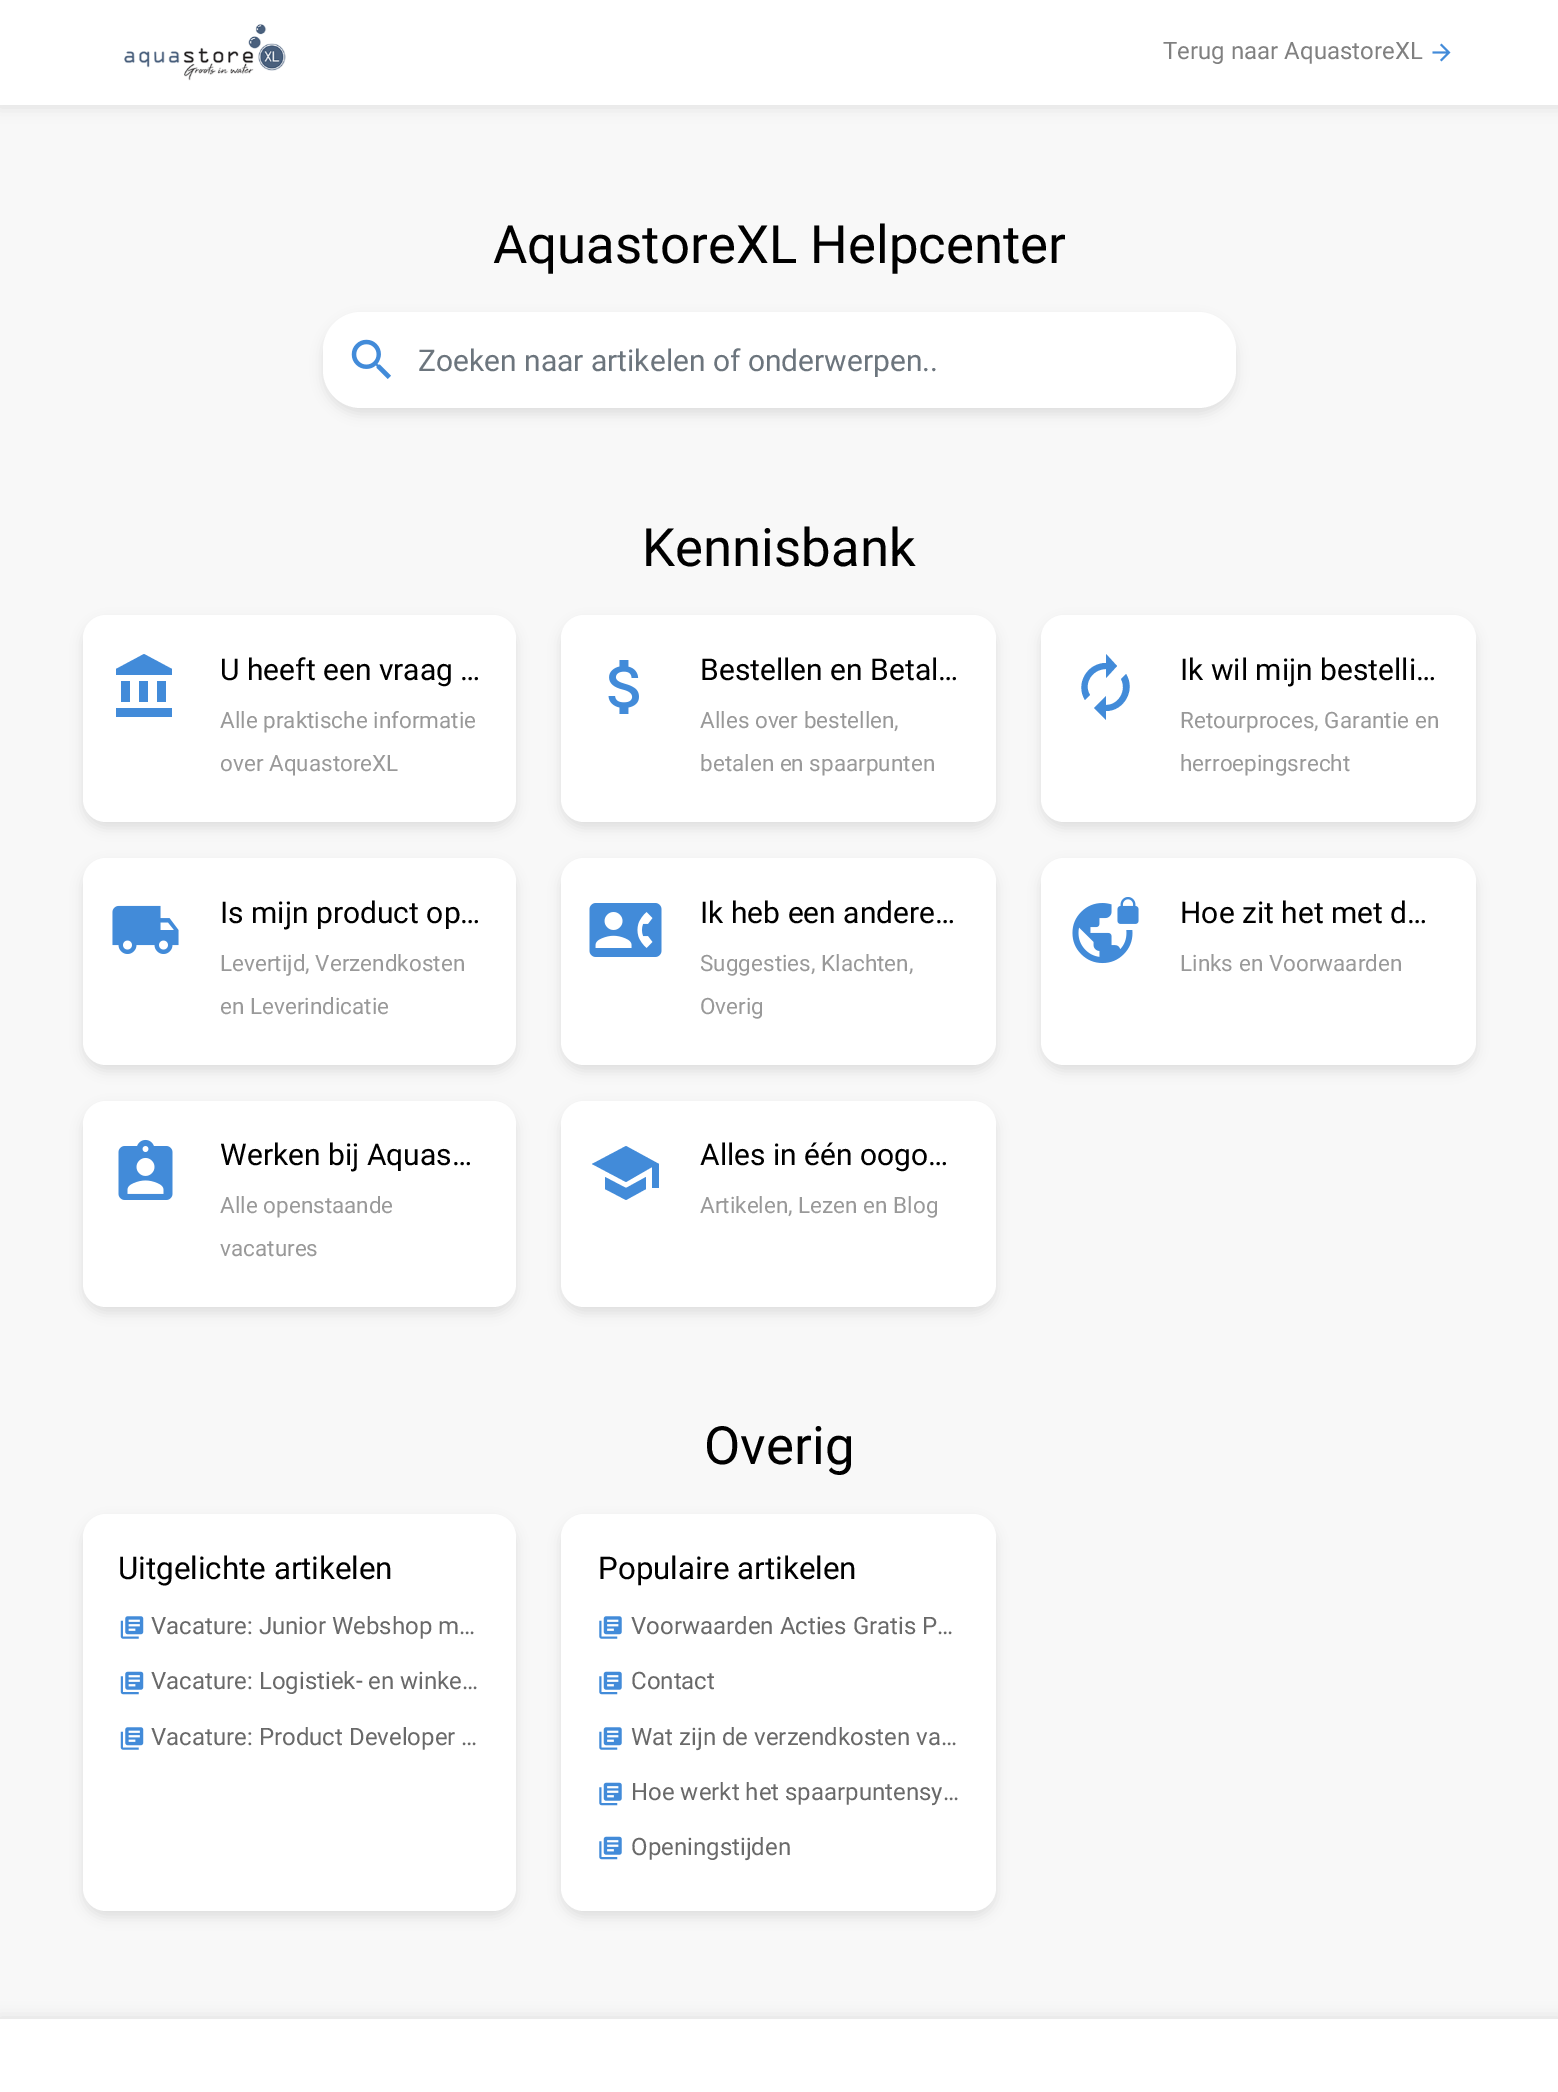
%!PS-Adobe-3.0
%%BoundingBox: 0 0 1558 2092
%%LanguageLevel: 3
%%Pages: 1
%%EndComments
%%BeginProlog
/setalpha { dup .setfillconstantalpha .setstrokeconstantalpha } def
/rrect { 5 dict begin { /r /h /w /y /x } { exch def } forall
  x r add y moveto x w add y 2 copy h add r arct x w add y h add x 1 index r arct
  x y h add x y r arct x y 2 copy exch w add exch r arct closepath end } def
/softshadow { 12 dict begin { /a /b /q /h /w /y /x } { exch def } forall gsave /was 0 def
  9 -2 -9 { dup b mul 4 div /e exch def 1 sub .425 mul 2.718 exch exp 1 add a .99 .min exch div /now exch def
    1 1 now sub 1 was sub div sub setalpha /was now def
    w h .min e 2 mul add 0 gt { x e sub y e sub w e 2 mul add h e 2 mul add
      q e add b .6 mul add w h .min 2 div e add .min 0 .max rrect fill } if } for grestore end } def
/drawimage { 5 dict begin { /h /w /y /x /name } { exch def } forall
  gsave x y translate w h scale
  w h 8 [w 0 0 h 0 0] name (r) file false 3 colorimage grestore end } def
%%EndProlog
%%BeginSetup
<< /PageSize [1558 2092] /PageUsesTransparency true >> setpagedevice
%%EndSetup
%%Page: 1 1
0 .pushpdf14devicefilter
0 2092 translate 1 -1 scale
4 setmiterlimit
0.973 setgray
0 0 1558 2092 rectfill
0 setgray
-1 -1 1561 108 0 7.5 0.1 softshadow
1 setgray
0 0 1558 105 rectfill
(images/1.raw) 124 24 162 57 drawimage
(images/2.raw) 1432 43 19 19 drawimage
0 setgray
323 318 913 96 38 6 0.1 softshadow
1 setgray
323 312 913 96 38 rrect fill
(images/3.raw) 351 339 40 40 drawimage
0 setgray
83 621 433 207 23 6 0.1 softshadow
1 setgray
83 615 433 207 23 rrect fill
0.259 0.545 0.851 setrgbcolor
newpath 144 654 moveto 172 669 lineto 172 675 lineto 116 675 lineto 116 669 lineto closepath 157 681 moveto 166 681 lineto 166 702 lineto 157 702 lineto closepath 116 717 moveto 116 708 lineto 172 708 lineto 172 717 lineto closepath 139 681 moveto 148 681 lineto 148 702 lineto 139 702 lineto closepath 121 681 moveto 130 681 lineto 130 702 lineto 121 702 lineto closepath fill
0 setgray
561 621 435 207 23 6 0.1 softshadow
1 setgray
561 615 435 207 23 rrect fill
(images/4.raw) 608 660 31 54 drawimage
0 setgray
1041 621 435 207 23 6 0.1 softshadow
1 setgray
1041 615 435 207 23 rrect fill
0.259 0.545 0.851 setrgbcolor
newpath 1126 674 moveto 1136 690 1124 711 1106 711 curveto 1106 720 lineto 1094 708 lineto 1106 696 lineto 1106 705 lineto 1119 705 1127 690 1121 679 curveto closepath 1106 669 moveto 1092 669 1083 684 1090 695 curveto 1085 700 lineto 1075 684 1087 663 1106 663 curveto 1106 654 lineto 1117 666 lineto 1106 678 lineto closepath fill
0 setgray
83 864 433 207 23 6 0.1 softshadow
1 setgray
83 858 433 207 23 rrect fill
(images/5.raw) 112 905 67 49 drawimage
0 setgray
561 864 435 207 23 6 0.1 softshadow
1 setgray
561 858 435 207 23 rrect fill
(images/6.raw) 589 903 73 54 drawimage
0 setgray
1041 864 435 207 23 6 0.1 softshadow
1 setgray
1041 858 435 207 23 rrect fill
(images/7.raw) 1072 897 67 67 drawimage
0 setgray
83 1107 433 206 23 6 0.1 softshadow
1 setgray
83 1101 433 206 23 rrect fill
(images/8.raw) 118 1139 55 61 drawimage
0 setgray
561 1107 435 206 23 6 0.1 softshadow
1 setgray
561 1101 435 206 23 rrect fill
0.259 0.545 0.851 setrgbcolor
newpath 626 1146 moveto 659 1164 lineto 659 1188 lineto 652 1188 lineto 652 1167 lineto 626 1182 lineto 592 1164 lineto closepath 605 1177 moveto 626 1188 lineto 646 1177 lineto 646 1189 lineto 626 1200 lineto 605 1189 lineto closepath fill
0 setgray
83 1520 433 397 23 6 0.1 softshadow
1 setgray
83 1514 433 397 23 rrect fill
(images/9.raw) 120 1616 24 23 drawimage
(images/10.raw) 120 1671 24 24 drawimage
(images/9.raw) 120 1727 24 23 drawimage
0 setgray
561 1520 435 397 23 6 0.1 softshadow
1 setgray
561 1514 435 397 23 rrect fill
(images/11.raw) 599 1616 23 23 drawimage
(images/12.raw) 599 1671 23 24 drawimage
(images/11.raw) 599 1727 23 23 drawimage
(images/12.raw) 599 1782 23 24 drawimage
(images/12.raw) 599 1836 23 24 drawimage
0 setgray
-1 2018 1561 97 0 7.5 0.1 softshadow
1 setgray
0 2019 1558 73 rectfill
/Roboto-Regular [24 0 0 -24 0 0] selectfont
0.502 setgray
1163 59 moveto (Terug naar AquastoreXL) show
/Roboto-Regular [52.75 0 0 -52.75 0 0] selectfont
0 setgray
493 263 moveto (AquastoreXL Helpcenter) show
/Roboto-Regular [30 0 0 -30 0 0] selectfont
0.424 0.459 0.49 setrgbcolor
418 371 moveto (Zoeken naar artikelen of onderwerpen..) show
/Roboto-Regular [52.75 0 0 -52.75 0 0] selectfont
0 setgray
642 566 moveto (Kennisbank) show
/Roboto-Regular [30 0 0 -30 0 0] selectfont
220 680 moveto (U heeft een vraag …) show
/Roboto-Regular [22.5 0 0 -22.5 0 0] selectfont
0.6 setgray
220 728 moveto (Alle praktische informatie) show
220 771 moveto (over AquastoreXL) show
/Roboto-Regular [30 0 0 -30 0 0] selectfont
0 setgray
700 680 moveto (Bestellen en Betal…) show
/Roboto-Regular [22.5 0 0 -22.5 0 0] selectfont
0.6 setgray
700 728 moveto (Alles over bestellen,) show
700 771 moveto (betalen en spaarpunten) show
/Roboto-Regular [30 0 0 -30 0 0] selectfont
0 setgray
1180 680 moveto (Ik wil mijn bestelli…) show
/Roboto-Regular [22.5 0 0 -22.5 0 0] selectfont
0.6 setgray
1180 728 moveto (Retourproces, Garantie en) show
1180 771 moveto (herroepingsrecht) show
/Roboto-Regular [30 0 0 -30 0 0] selectfont
0 setgray
220 923 moveto (Is mijn product op…) show
/Roboto-Regular [22.5 0 0 -22.5 0 0] selectfont
0.6 setgray
220 971 moveto (Levertijd, Verzendkosten) show
220 1014 moveto (en Leverindicatie) show
/Roboto-Regular [30 0 0 -30 0 0] selectfont
0 setgray
700 923 moveto (Ik heb een andere…) show
/Roboto-Regular [22.5 0 0 -22.5 0 0] selectfont
0.6 setgray
700 971 moveto (Suggesties, Klachten,) show
700 1014 moveto (Overig) show
/Roboto-Regular [30 0 0 -30 0 0] selectfont
0 setgray
1180 923 moveto (Hoe zit het met d…) show
/Roboto-Regular [22.5 0 0 -22.5 0 0] selectfont
0.6 setgray
1180 971 moveto (Links en Voorwaarden) show
/Roboto-Regular [30 0 0 -30 0 0] selectfont
0 setgray
220 1165 moveto (Werken bij Aquas…) show
/Roboto-Regular [22.5 0 0 -22.5 0 0] selectfont
0.6 setgray
220 1213 moveto (Alle openstaande) show
220 1256 moveto (vacatures) show
/Roboto-Regular [30 0 0 -30 0 0] selectfont
0 setgray
700 1165 moveto (Alles in één oogo…) show
/Roboto-Regular [22.5 0 0 -22.5 0 0] selectfont
0.6 setgray
700 1213 moveto (Artikelen, Lezen en Blog) show
/Roboto-Regular [52.75 0 0 -52.75 0 0] selectfont
0 setgray
704 1464 moveto (Overig) show
/Roboto-Regular [31.25 0 0 -31.25 0 0] selectfont
118 1579 moveto (Uitgelichte artikelen) show
/Roboto-Regular [24 0 0 -24 0 0] selectfont
0.412 setgray
151 1634 moveto (Vacature: Junior Webshop m…) show
151 1689 moveto (Vacature: Logistiek- en winke…) show
151 1745 moveto (Vacature: Product Developer …) show
/Roboto-Regular [31.25 0 0 -31.25 0 0] selectfont
0 setgray
598 1579 moveto (Populaire artikelen) show
/Roboto-Regular [24 0 0 -24 0 0] selectfont
0.412 setgray
631 1634 moveto (Voorwaarden Acties Gratis P…) show
631 1689 moveto (Contact) show
631 1745 moveto (Wat zijn de verzendkosten va…) show
631 1800 moveto (Hoe werkt het spaarpuntensy…) show
631 1855 moveto (Openingstijden) show
.poppdf14devicefilter showpage
%%EOF
